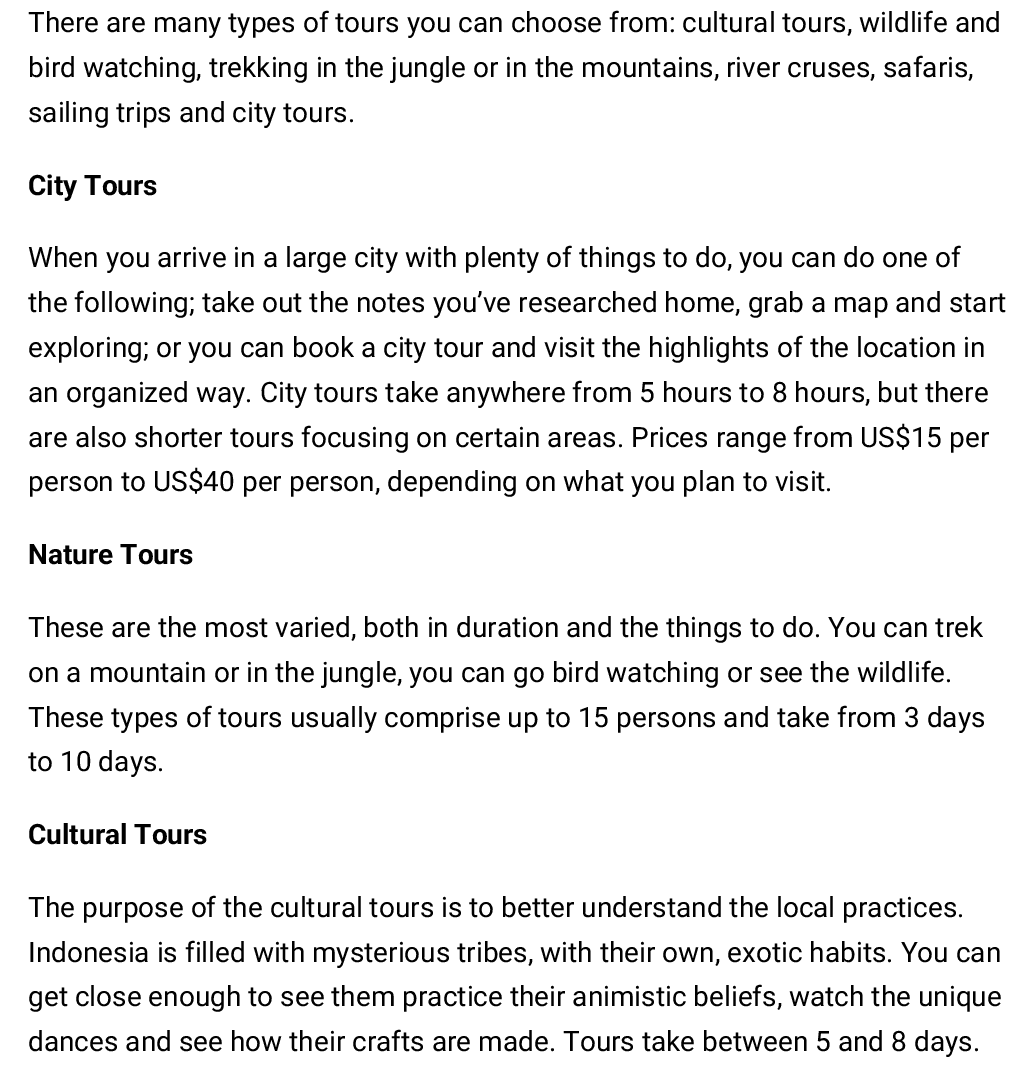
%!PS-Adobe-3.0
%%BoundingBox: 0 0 1034 1070
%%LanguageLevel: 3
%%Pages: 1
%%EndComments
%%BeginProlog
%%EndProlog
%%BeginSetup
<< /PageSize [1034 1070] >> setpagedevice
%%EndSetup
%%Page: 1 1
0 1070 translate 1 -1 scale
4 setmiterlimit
1 setgray
0 0 1034 1070 rectfill
/Roboto-Regular [28 0 0 -28 0 0] selectfont
0 setgray
28 32 moveto (There are many types of tours you can choose from: cultural tours, wildlife and) show
28 77 moveto (bird watching, trekking in the jungle or in the mountains, river cruses, safaris,) show
28 122 moveto (sailing trips and city tours.) show
/Roboto-Bold [28 0 0 -28 0 0] selectfont
28 195 moveto (City Tours) show
/Roboto-Regular [28 0 0 -28 0 0] selectfont
28 267 moveto (When you arrive in a large city with plenty of things to do, you can do one of) show
28 312 moveto (the following; take out the notes you’ve researched home, grab a map and start) show
28 357 moveto (exploring; or you can book a city tour and visit the highlights of the location in) show
28 402 moveto (an organized way. City tours take anywhere from 5 hours to 8 hours, but there) show
28 447 moveto (are also shorter tours focusing on certain areas. Prices range from US$15 per) show
28 491 moveto (person to US$40 per person, depending on what you plan to visit.) show
/Roboto-Bold [28 0 0 -28 0 0] selectfont
28 564 moveto (Nature Tours) show
/Roboto-Regular [28 0 0 -28 0 0] selectfont
28 637 moveto (These are the most varied, both in duration and the things to do. You can trek) show
28 682 moveto (on a mountain or in the jungle, you can go bird watching or see the wildlife.) show
28 727 moveto (These types of tours usually comprise up to 15 persons and take from 3 days) show
28 771 moveto (to 10 days.) show
/Roboto-Bold [28 0 0 -28 0 0] selectfont
28 844 moveto (Cultural Tours) show
/Roboto-Regular [28 0 0 -28 0 0] selectfont
28 917 moveto (The purpose of the cultural tours is to better understand the local practices.) show
28 962 moveto (Indonesia is filled with mysterious tribes, with their own, exotic habits. You can) show
28 1006 moveto (get close enough to see them practice their animistic beliefs, watch the unique) show
28 1051 moveto (dances and see how their crafts are made. Tours take between 5 and 8 days.) show
showpage
%%EOF
